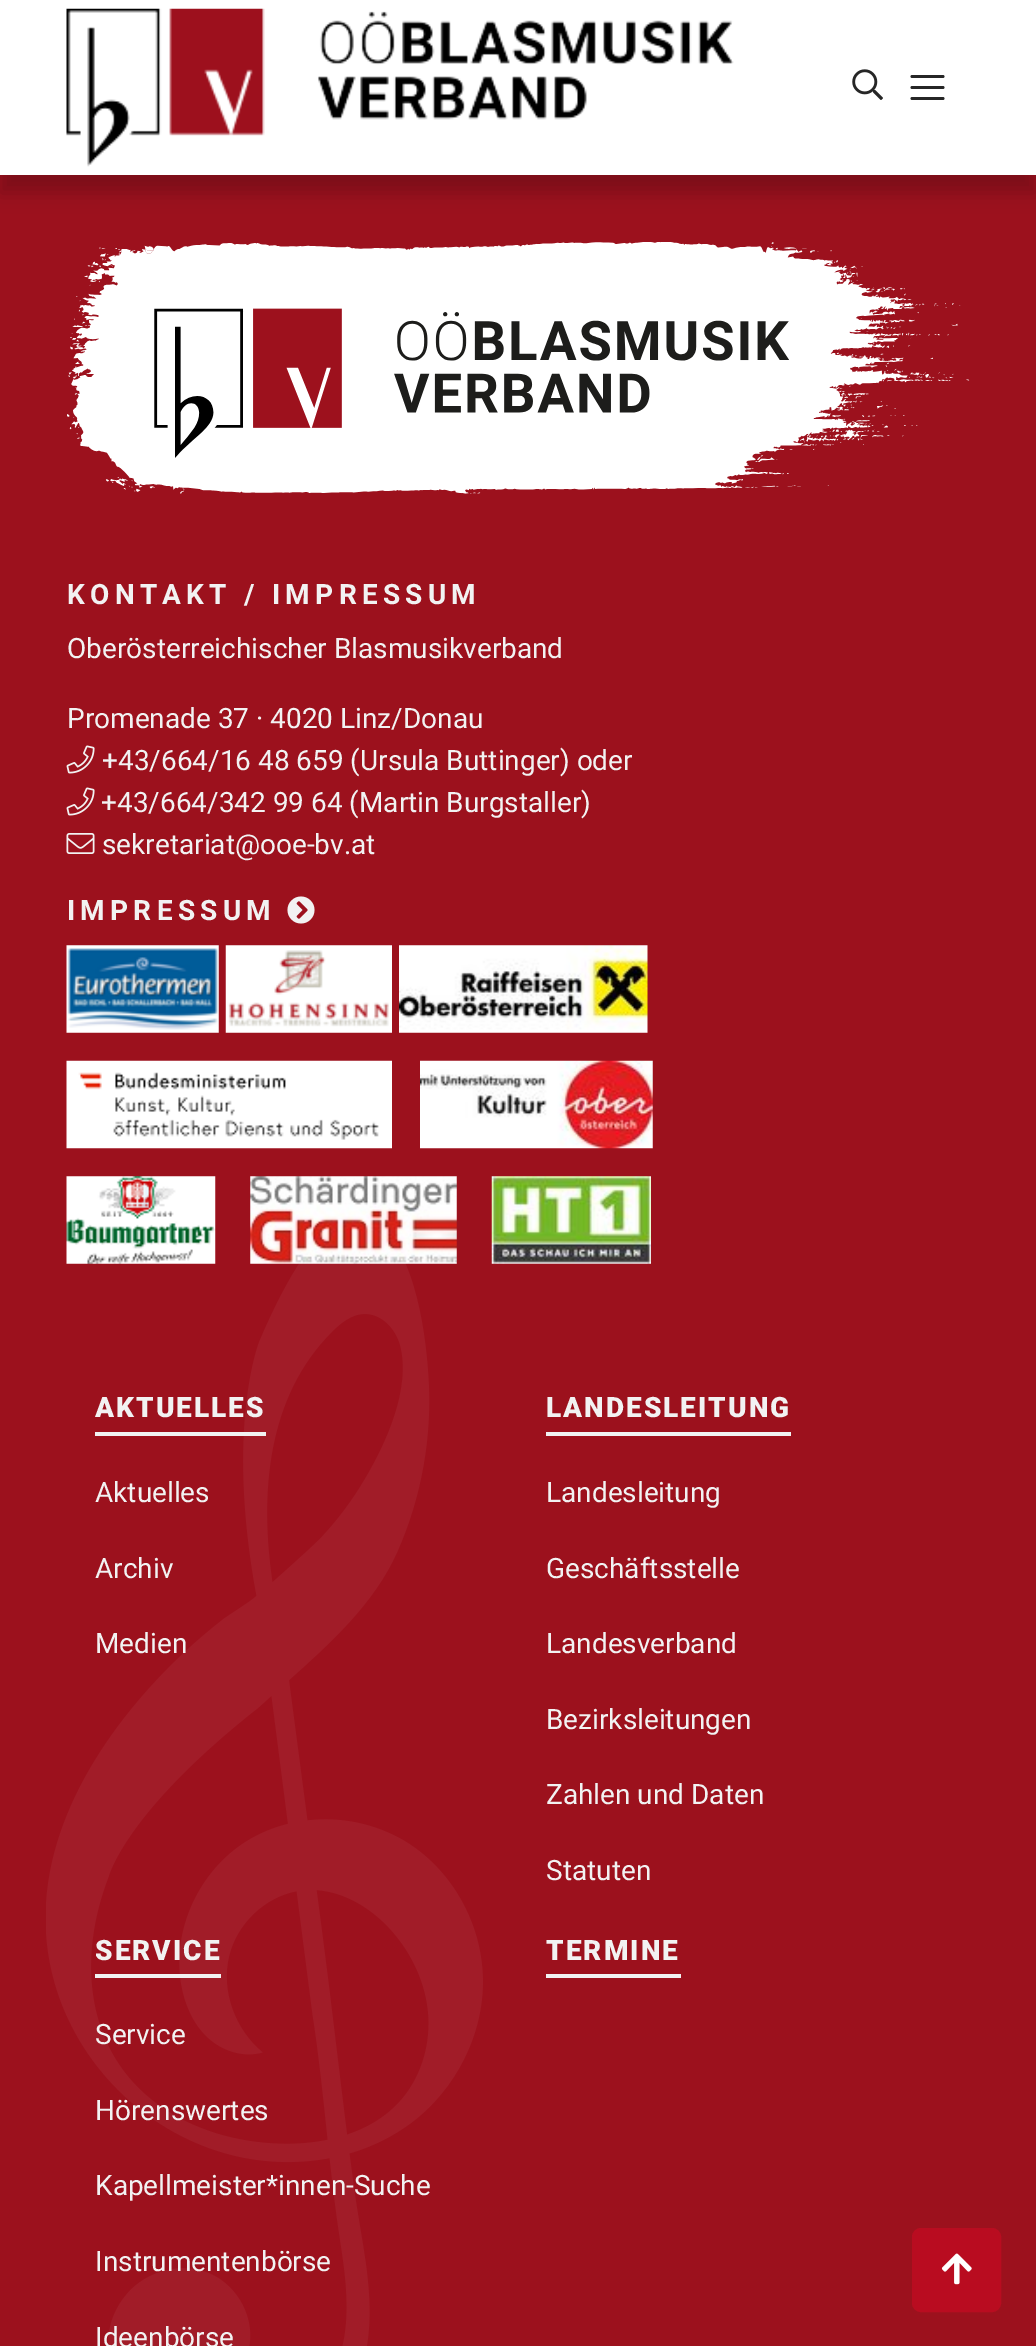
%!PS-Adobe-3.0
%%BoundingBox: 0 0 1036 2346
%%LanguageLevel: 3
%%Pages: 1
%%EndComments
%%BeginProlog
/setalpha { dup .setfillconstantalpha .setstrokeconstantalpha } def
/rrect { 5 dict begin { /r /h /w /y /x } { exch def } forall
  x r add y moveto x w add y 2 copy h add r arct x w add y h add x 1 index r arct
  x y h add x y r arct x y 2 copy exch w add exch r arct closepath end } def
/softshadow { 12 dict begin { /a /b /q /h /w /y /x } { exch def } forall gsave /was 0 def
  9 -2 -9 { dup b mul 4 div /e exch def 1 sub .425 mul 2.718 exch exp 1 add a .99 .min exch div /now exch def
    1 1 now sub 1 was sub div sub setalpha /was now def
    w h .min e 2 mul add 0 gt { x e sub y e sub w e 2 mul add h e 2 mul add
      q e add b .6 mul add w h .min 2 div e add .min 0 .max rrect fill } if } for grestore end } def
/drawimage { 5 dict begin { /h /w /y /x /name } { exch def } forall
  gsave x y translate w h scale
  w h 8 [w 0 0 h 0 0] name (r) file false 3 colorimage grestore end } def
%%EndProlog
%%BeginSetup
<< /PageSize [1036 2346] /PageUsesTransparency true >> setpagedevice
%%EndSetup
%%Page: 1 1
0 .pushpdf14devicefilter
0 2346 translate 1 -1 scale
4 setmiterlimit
0.612 0.067 0.114 setrgbcolor
0 0 1036 2346 rectfill
0 setgray
0 18 1036 175 0 9 0.2 softshadow
1 setgray
0 0 1036 175 rectfill
(images/1.raw) 66 8 668 159 drawimage
(images/2.raw) 852 69 31 31 drawimage
0.149 setgray
2.8 setlinewidth
1 setlinecap
newpath 912 76.5 moveto 943 76.5 lineto 912 87.5 moveto 943 87.5 lineto 912 98.5 moveto 943 98.5 lineto stroke
(images/3.raw) 67 242 903 252 drawimage
(images/4.raw) 66 745 29 29 drawimage
(images/4.raw) 66 787 29 29 drawimage
(images/5.raw) 66 833 29 21 drawimage
(images/6.raw) 287 896 28 28 drawimage
(images/7.raw) 66 945 153 88 drawimage
(images/8.raw) 225 945 167 88 drawimage
(images/9.raw) 399 945 249 88 drawimage
(images/10.raw) 66 1060 326 89 drawimage
(images/11.raw) 420 1060 233 89 drawimage
(images/15.raw) 46 1263 437 1083 drawimage
(images/12.raw) 66 1176 150 88 drawimage
(images/13.raw) 250 1176 207 88 drawimage
(images/14.raw) 491 1176 160 88 drawimage
0.949 setgray
95 1432 171 4 rectfill
546 1432 245 4 rectfill
95 1974 126 4 rectfill
546 1974 135 4 rectfill
0.725 0.047 0.125 setrgbcolor
913 2229 87 82 8 rrect gsave fill grestore
2 setlinewidth
0 setlinecap
stroke
(images/16.raw) 941 2253 31 32 drawimage
/Roboto-Bold [28 0 0 -28 0 0] selectfont
0.949 setgray
67 604 moveto 5.25 0 (KONTAKT / IMPRESSUM) ashow
/Roboto-Regular [28 0 0 -28 0 0] selectfont
67 658 moveto (Oberösterreichischer Blasmusikverband) show
67 728 moveto (Promenade 37 · 4020 Linz/Donau) show
102 770 moveto (+43/664/16 48 659 \(Ursula Buttinger\) oder) show
101 812 moveto (+43/664/342 99 64 \(Martin Burgstaller\)) show
102 854 moveto (sekretariat@ooe-bv.at) show
/Roboto-Bold [28 0 0 -28 0 0] selectfont
67 920 moveto 5.25 0 (IMPRESSUM) ashow
/Roboto-Black [28 0 0 -28 0 0] selectfont
95 1417 moveto 2 0 (AKTUELLES) ashow
/Roboto-Regular [28 0 0 -28 0 0] selectfont
95 1502 moveto (Aktuelles) show
95 1578 moveto (Archiv) show
95 1653 moveto (Medien) show
/Roboto-Black [28 0 0 -28 0 0] selectfont
546 1417 moveto 2 0 (LANDESLEITUNG) ashow
/Roboto-Regular [28 0 0 -28 0 0] selectfont
546 1502 moveto (Landesleitung) show
546 1578 moveto (Geschäftsstelle) show
546 1653 moveto (Landesverband) show
546 1729 moveto (Bezirksleitungen) show
546 1804 moveto (Zahlen und Daten) show
546 1880 moveto (Statuten) show
/Roboto-Black [28 0 0 -28 0 0] selectfont
95 1960 moveto 2 0 (SERVICE) ashow
/Roboto-Regular [28 0 0 -28 0 0] selectfont
95 2044 moveto (Service) show
95 2120 moveto (Hörenswertes) show
95 2195 moveto (Kapellmeister*innen-Suche) show
95 2271 moveto (Instrumentenbörse) show
95 2347 moveto (Ideenbörse) show
/Roboto-Black [28 0 0 -28 0 0] selectfont
546 1960 moveto 2 0 (TERMINE) ashow
.poppdf14devicefilter showpage
%%EOF
